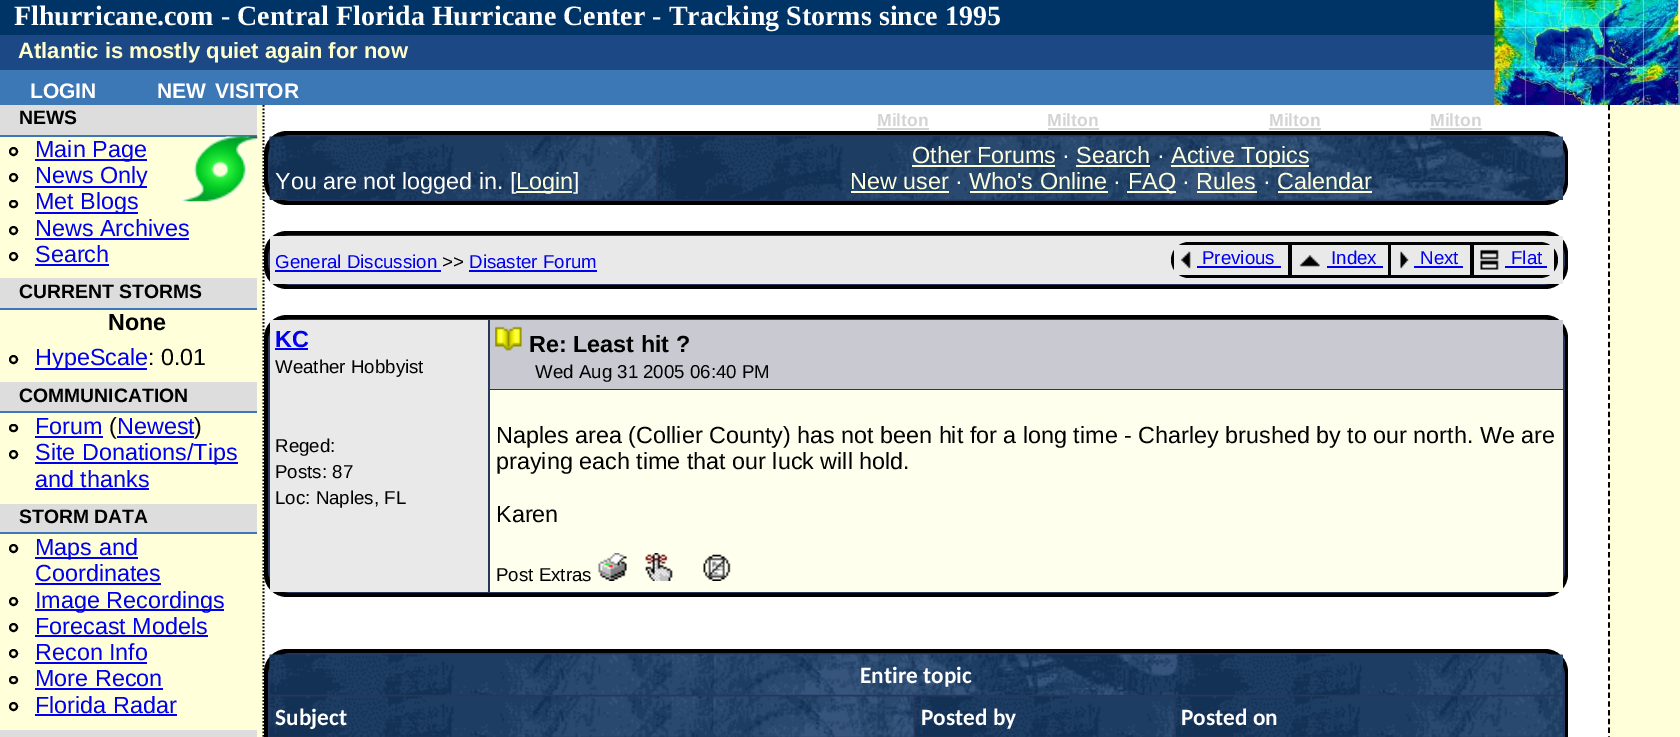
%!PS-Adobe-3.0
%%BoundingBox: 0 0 1680 737
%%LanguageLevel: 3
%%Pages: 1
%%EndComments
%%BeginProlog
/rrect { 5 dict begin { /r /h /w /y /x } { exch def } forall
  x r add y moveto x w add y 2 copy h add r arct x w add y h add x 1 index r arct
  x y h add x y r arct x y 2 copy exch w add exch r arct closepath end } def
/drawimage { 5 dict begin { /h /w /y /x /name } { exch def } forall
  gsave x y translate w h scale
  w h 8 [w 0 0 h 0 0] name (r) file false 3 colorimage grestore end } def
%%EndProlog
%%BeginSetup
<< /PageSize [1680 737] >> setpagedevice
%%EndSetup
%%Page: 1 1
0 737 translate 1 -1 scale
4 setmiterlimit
1 1 0.855 setrgbcolor
0 0 1680 737 rectfill
0 0.2 0.4 setrgbcolor
0 0 1495 35 rectfill
0.11 0.282 0.522 setrgbcolor
0 35 1680 35 rectfill
0.235 0.471 0.71 setrgbcolor
0 70 1680 35 rectfill
(images/1.raw) 1494 0 185 105 drawimage
1 setgray
263 105 1347 632 rectfill
0.827 setgray
877 128 52 2 rectfill
1048 128 51 2 rectfill
1269 128 52 2 rectfill
1430 128 52 2 rectfill
0.867 setgray
0 105 257 30 rectfill
0.235 0.471 0.71 setrgbcolor
0 135 257 2 rectfill
(images/2.raw) 182 136 76 66 drawimage
0 setgray
2 setlinewidth
newpath 13.5 151.5 3.5 0 360 arc closepath stroke
0 0 0.933 setrgbcolor
35 159 112 2 rectfill
0 setgray
newpath 13.5 177.5 3.5 0 360 arc closepath stroke
0 0 0.933 setrgbcolor
35 186 112 2 rectfill
0 setgray
10 201 7 6 3 rrect stroke
0 0 0.933 setrgbcolor
35 212 103 2 rectfill
0 setgray
newpath 13.5 230.5 3.5 0 360 arc closepath stroke
0 0 0.933 setrgbcolor
35 238 154 2 rectfill
0 setgray
newpath 13.5 256.5 3.5 0 360 arc closepath stroke
0 0 0.933 setrgbcolor
35 264 74 2 rectfill
0.867 setgray
0 278 257 30 rectfill
0.235 0.471 0.71 setrgbcolor
0 308 257 2 rectfill
0 setgray
newpath 13.5 359.5 3.5 0 360 arc closepath stroke
0 0 0.933 setrgbcolor
35 368 112 2 rectfill
0.867 setgray
0 382 257 29 rectfill
0.235 0.471 0.71 setrgbcolor
0 411 257 2 rectfill
0 setgray
10 425 7 6 3 rrect stroke
0 0 0.933 setrgbcolor
35 436 68 2 rectfill
117 436 77 2 rectfill
0 setgray
newpath 13.5 454.5 3.5 0 360 arc closepath stroke
0 0 0.933 setrgbcolor
35 462 203 2 rectfill
35 488 114 2 rectfill
0.867 setgray
0 504 257 28 rectfill
0.235 0.471 0.71 setrgbcolor
0 532 257 2 rectfill
0 setgray
newpath 13.5 548.5 3.5 0 360 arc closepath stroke
0 0 0.933 setrgbcolor
35 557 103 2 rectfill
35 583 126 2 rectfill
0 setgray
newpath 13.5 601.5 3.5 0 360 arc closepath stroke
0 0 0.933 setrgbcolor
35 609 189 2 rectfill
0 setgray
newpath 13.5 627.5 3.5 0 360 arc closepath stroke
0 0 0.933 setrgbcolor
35 635 173 2 rectfill
0 setgray
newpath 13.5 653.5 3.5 0 360 arc closepath stroke
0 0 0.933 setrgbcolor
35 662 112 2 rectfill
0 setgray
10 677 7 6 3 rrect stroke
0 0 0.933 setrgbcolor
35 688 128 2 rectfill
0 setgray
newpath 13.5 706.5 3.5 0 360 arc closepath stroke
0 0 0.933 setrgbcolor
35 714 142 2 rectfill
0.867 setgray
0 730 257 7 rectfill
0 setgray
1.8 setlinewidth
[5.25 3.52] 0 setdash
newpath 1609 105 moveto 1609 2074 lineto stroke
[1.75 1.75] 0 setdash
newpath 263.5 105 moveto 263.5 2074 lineto stroke
264 131 1304 74 23 rrect fill
0.149 0.216 0.357 setrgbcolor
268 135 1297 66 23 rrect fill
270 199 14 1 rectfill
(images/3.raw) 269 136 388 64 drawimage
0.996 1 0.875 setrgbcolor
516 191 56 2 rectfill
0.149 0.216 0.357 setrgbcolor
1549 137 14 63 rectfill
(images/4.raw) 658 136 905 64 drawimage
0.996 1 0.875 setrgbcolor
912 165 143 2 rectfill
1076 165 74 2 rectfill
1171 165 138 2 rectfill
851 191 98 2 rectfill
970 191 138 2 rectfill
1127 191 49 2 rectfill
1197 191 60 2 rectfill
1278 191 94 2 rectfill
0 setgray
264 231 1304 58 23 rrect fill
0.149 0.216 0.357 setrgbcolor
268 235 1297 50 23 rrect fill
0.914 setgray
270 236 1293 48 rectfill
0 0 0.933 setrgbcolor
275 270 166 2 rectfill
469 270 128 2 rectfill
0 setgray
1171 242 387 36 18 rrect fill
0.914 setgray
1174 245 114 30 rectfill
(images/5.raw) 1180 251 11 18 drawimage
0 0 0.933 setrgbcolor
1197 266 84 2 rectfill
0.914 setgray
1292 245 96 30 rectfill
(images/6.raw) 1299 255 21 12 drawimage
0 0 0.933 setrgbcolor
1327 266 56 2 rectfill
0.914 setgray
1391 245 79 30 rectfill
(images/7.raw) 1400 251 9 18 drawimage
0 0 0.933 setrgbcolor
1414 266 49 2 rectfill
0.914 setgray
1474 245 80 30 rectfill
(images/8.raw) 1480 249 19 21 drawimage
0 0 0.933 setrgbcolor
1505 266 42 2 rectfill
0 setgray
264 315 1304 282 23 rrect fill
0.149 0.216 0.357 setrgbcolor
268 319 1297 274 23 rrect fill
0.914 setgray
270 320 218 272 rectfill
0 0 0.933 setrgbcolor
275 348 33 2 rectfill
0.788 0.788 0.824 setrgbcolor
490 320 1073 69 rectfill
(images/9.raw) 495 326 27 25 drawimage
1 1 0.933 setrgbcolor
490 390 1073 202 rectfill
(images/10.raw) 598 553 29 28 drawimage
(images/11.raw) 645 553 28 28 drawimage
(images/12.raw) 703 554 28 27 drawimage
0 setgray
264 649 1304 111 23 rrect fill
0.149 0.216 0.357 setrgbcolor
268 653 1297 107 23 rrect fill
270 655 1293 12 rectfill
(images/13.raw) 269 654 1294 41 drawimage
(images/14.raw) 269 696 645 41 drawimage
(images/15.raw) 915 696 260 41 drawimage
(images/16.raw) 1176 696 387 41 drawimage
/LiberationSerif-Bold [28 0 0 -28 0 0] selectfont
1 setgray
14 25 moveto (Flhurricane.com - Central Florida Hurricane Center - Tracking Storms since 1995) show
/LiberationSans-Bold [22 0 0 -22 0 0] selectfont
1 1 0.8 setrgbcolor
18 58 moveto (Atlantic is mostly quiet again for now) show
/LiberationSans-Bold [17.5 0 0 -17.5 0 0] selectfont
0.827 setgray
877 126 moveto (Milton) show
1047 126 moveto (Milton) show
1269 126 moveto (Milton) show
1430 126 moveto (Milton) show
/LiberationSans-Bold [21 0 0 -21 0 0] selectfont
1 setgray
30 98 moveto (LOGIN) show
157 98 moveto (NEW) show
215 98 moveto (VISITOR) show
/LiberationSans-Bold [19.4 0 0 -19.4 0 0] selectfont
0 setgray
19 124 moveto (NEWS) show
/LiberationSans-Regular [23.35 0 0 -23.35 0 0] selectfont
0 0 0.933 setrgbcolor
35 157 moveto (Main Page) show
35 183 moveto (News Only) show
35 209 moveto (Met Blogs) show
35 236 moveto (News Archives) show
35 262 moveto (Search) show
/LiberationSans-Bold [19.4 0 0 -19.4 0 0] selectfont
0 setgray
19 298 moveto (CURRENT STORMS) show
/LiberationSans-Bold [23.35 0 0 -23.35 0 0] selectfont
108 330 moveto (None) show
/LiberationSans-Regular [23.35 0 0 -23.35 0 0] selectfont
0 0 0.933 setrgbcolor
35 365 moveto (HypeScale) show
0 setgray
148 365 moveto (: 0.01) show
/LiberationSans-Bold [19.4 0 0 -19.4 0 0] selectfont
19 402 moveto (COMMUNICATION) show
/LiberationSans-Regular [23.35 0 0 -23.35 0 0] selectfont
0 0 0.933 setrgbcolor
35 434 moveto (Forum) show
0 setgray
109 434 moveto (\() show
0 0 0.933 setrgbcolor
117 434 moveto (Newest) show
0 setgray
194 434 moveto (\)) show
0 0 0.933 setrgbcolor
35 460 moveto (Site Donations/Tips) show
35 487 moveto (and thanks) show
/LiberationSans-Bold [19.4 0 0 -19.4 0 0] selectfont
0 setgray
19 523 moveto (STORM DATA) show
/LiberationSans-Regular [23.35 0 0 -23.35 0 0] selectfont
0 0 0.933 setrgbcolor
35 555 moveto (Maps and) show
35 581 moveto (Coordinates) show
35 608 moveto (Image Recordings) show
35 634 moveto (Forecast Models) show
35 660 moveto (Recon Info) show
35 686 moveto (More Recon) show
35 713 moveto (Florida Radar) show
1 setgray
275 189 moveto (You are not logged in. [) show
0.996 1 0.875 setrgbcolor
516 189 moveto (Login) show
1 setgray
573 189 moveto (]) show
0.996 1 0.875 setrgbcolor
912 163 moveto (Other Forums) show
1 setgray
1062 163 moveto (·) show
0.996 1 0.875 setrgbcolor
1076 163 moveto (Search) show
1 setgray
1157 163 moveto (·) show
0.996 1 0.875 setrgbcolor
1171 163 moveto (Active Topics) show
850 189 moveto (New user) show
1 setgray
955 189 moveto (·) show
0.996 1 0.875 setrgbcolor
969 189 moveto (Who's Online) show
1 setgray
1113 189 moveto (·) show
0.996 1 0.875 setrgbcolor
1128 189 moveto (FAQ) show
1 setgray
1182 189 moveto (·) show
0.996 1 0.875 setrgbcolor
1196 189 moveto (Rules) show
1 setgray
1263 189 moveto (·) show
0.996 1 0.875 setrgbcolor
1277 189 moveto (Calendar) show
/LiberationSans-Regular [18.7 0 0 -18.7 0 0] selectfont
0 0 0.933 setrgbcolor
275 268 moveto (General Discussion) show
0 setgray
442 268 moveto (>>) show
0 0 0.933 setrgbcolor
469 268 moveto (Disaster Forum) show
1202 264 moveto (Previous) show
1331 264 moveto (Index) show
1420 264 moveto (Next) show
1511 264 moveto (Flat) show
/LiberationSans-Bold [23.35 0 0 -23.35 0 0] selectfont
275 347 moveto (KC) show
/LiberationSans-Regular [18.7 0 0 -18.7 0 0] selectfont
0 setgray
275 373 moveto (Weather Hobbyist) show
275 452 moveto (Reged:) show
275 478 moveto (Posts: 87) show
275 504 moveto (Loc: Naples, FL) show
/LiberationSans-Bold [23.35 0 0 -23.35 0 0] selectfont
529 352 moveto (Re: Least hit ?) show
/LiberationSans-Regular [18.7 0 0 -18.7 0 0] selectfont
535 378 moveto (Wed Aug 31 2005 06:40 PM) show
/LiberationSans-Regular [23.35 0 0 -23.35 0 0] selectfont
496 443 moveto (Naples area \(Collier County\) has not been hit for a long time - Charley brushed by to our north. We are) show
496 469 moveto (praying each time that our luck will hold.) show
496 522 moveto (Karen) show
/LiberationSans-Regular [18.7 0 0 -18.7 0 0] selectfont
496 581 moveto (Post Extras) show
/Carlito-Bold [23.35 0 0 -23.35 0 0] selectfont
1 setgray
860 683 moveto (Entire topic) show
275 725 moveto (Subject) show
921 725 moveto (Posted by) show
1181 725 moveto (Posted on) show
showpage
%%EOF
